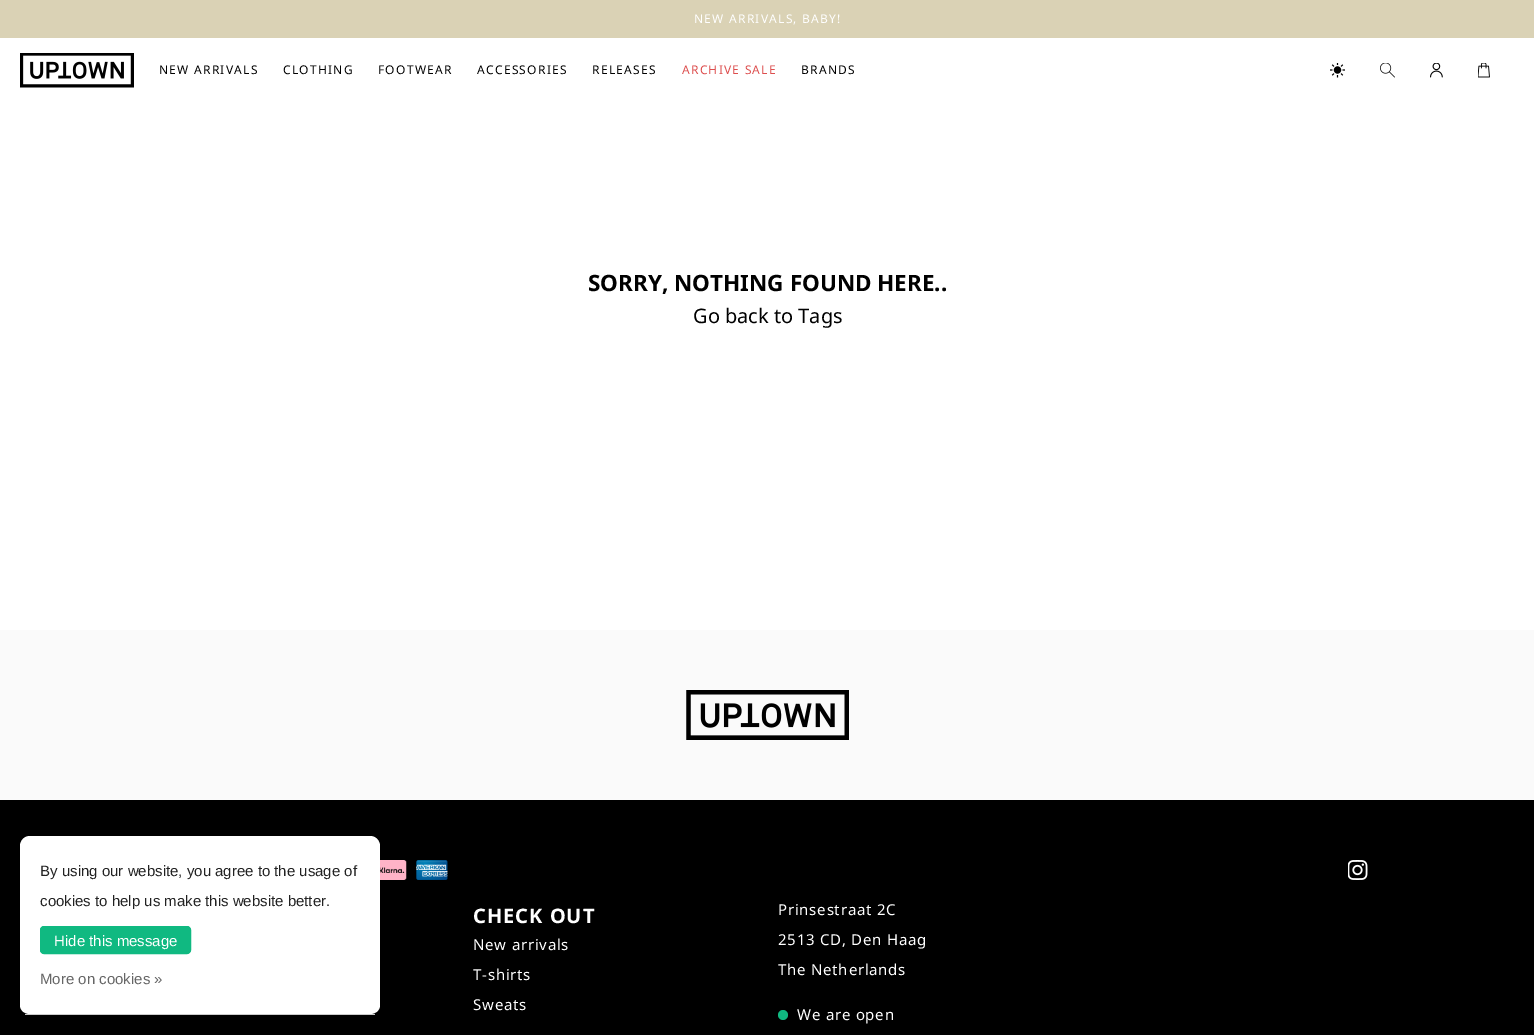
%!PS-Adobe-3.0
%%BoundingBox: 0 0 1534 1035
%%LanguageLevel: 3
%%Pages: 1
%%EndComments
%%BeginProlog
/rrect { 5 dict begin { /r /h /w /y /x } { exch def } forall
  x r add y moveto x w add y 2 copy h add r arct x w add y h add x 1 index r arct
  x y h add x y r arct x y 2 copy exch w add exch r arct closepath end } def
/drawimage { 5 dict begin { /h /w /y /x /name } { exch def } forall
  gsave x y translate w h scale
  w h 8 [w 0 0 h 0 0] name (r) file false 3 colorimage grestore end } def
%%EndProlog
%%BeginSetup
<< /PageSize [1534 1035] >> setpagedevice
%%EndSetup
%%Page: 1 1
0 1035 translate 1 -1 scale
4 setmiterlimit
1 setgray
0 0 1534 1035 rectfill
0.855 0.824 0.71 setrgbcolor
0 0 1534 38 rectfill
(images/1.raw) 20 53 114 35 drawimage
(images/2.raw) 1330 63 15 15 drawimage
(images/3.raw) 1380 63 15 15 drawimage
(images/4.raw) 1430 63 13 15 drawimage
(images/5.raw) 1478 63 12 15 drawimage
0.98 setgray
0 630 1534 170 rectfill
(images/6.raw) 686 690 163 50 drawimage
0 setgray
0 800 1534 235 rectfill
(images/7.raw) 380 860 27 20 drawimage
(images/8.raw) 416 860 32 20 drawimage
(images/9.raw) 1348 860 20 20 drawimage
0.063 0.725 0.506 setrgbcolor
newpath 783 1015 5 0 360 arc closepath fill
1 setgray
newpath 30 836 moveto 370 836 lineto 376 836 380 841 380 846 curveto 380 1005 lineto 380 1010 376 1014 370 1014 curveto 30 1014 lineto 24 1014 20 1010 20 1005 curveto 20 846 lineto 20 841 24 836 30 836 curveto closepath fill
0.8 setgray
25 1014 350 1 rectfill
0.063 0.725 0.506 setrgbcolor
40.5 926.5 150 27 3.5 rrect gsave fill grestore
stroke
/NotoSans-Regular [12 0 0 -12 0 0] selectfont
1 setgray
694 23 moveto 1.25 0 (NEW ARRIVALS, BABY!) ashow
0 setgray
159 74 moveto 1.25 0 (NEW ARRIVALS) ashow
283 74 moveto 1.25 0 (CLOTHING) ashow
378 74 moveto 1.25 0 (FOOTWEAR) ashow
477 74 moveto 1.25 0 (ACCESSORIES) ashow
592 74 moveto 1.25 0 (RELEASES) ashow
0.867 0.306 0.306 setrgbcolor
682 74 moveto 1.25 0 (ARCHIVE SALE) ashow
0 setgray
801 74 moveto 1.25 0 (BRANDS) ashow
/NotoSans-Bold [22.5 0 0 -22.5 0 0] selectfont
588 291 moveto (SORRY, NOTHING FOUND HERE..) show
/NotoSans-Regular [20 0 0 -20 0 0] selectfont
693 323 moveto (Go back to Tags) show
/NotoSans-Bold [20 0 0 -20 0 0] selectfont
1 setgray
473 923 moveto 1 0 (CHECK OUT) ashow
/NotoSans-Regular [15 0 0 -15 0 0] selectfont
473 950 moveto 0.75 0 (New arrivals) ashow
473 980 moveto 0.75 0 (T-shirts) ashow
473 1010 moveto 0.75 0 (Sweats) ashow
778 915 moveto 0.75 0 (Prinsestraat 2C) ashow
778 945 moveto 0.75 0 (2513 CD, Den Haag) ashow
778 975 moveto 0.75 0 (The Netherlands) ashow
797 1020 moveto 0.75 0 (We are open) ashow
/LiberationSans-Regular [15 0 0 -15 0 0] selectfont
0.133 setgray
40 876 moveto (By using our website, you agree to the usage of) show
40 906 moveto (cookies to help us make this website better.) show
1 setgray
54 946 moveto (Hide this message) show
0.4 setgray
40 984 moveto (More on cookies ») show
showpage
%%EOF
